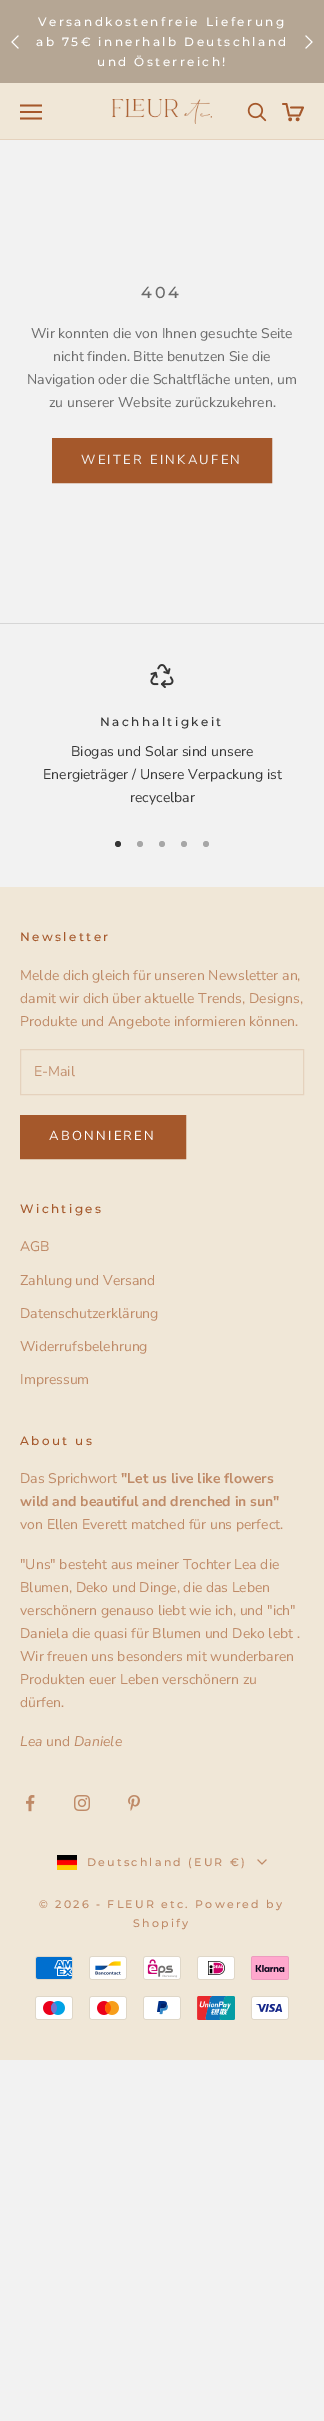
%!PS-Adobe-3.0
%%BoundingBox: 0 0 324 2421
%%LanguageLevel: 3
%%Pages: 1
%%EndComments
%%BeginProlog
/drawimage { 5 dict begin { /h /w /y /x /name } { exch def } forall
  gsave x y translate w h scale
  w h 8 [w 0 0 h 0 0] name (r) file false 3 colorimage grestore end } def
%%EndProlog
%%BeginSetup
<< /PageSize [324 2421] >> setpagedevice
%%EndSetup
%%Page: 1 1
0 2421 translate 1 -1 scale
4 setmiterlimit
0.949 setgray
0 0 324 2421 rectfill
0.71 0.651 0.58 setrgbcolor
0 0 324 83 rectfill
1 setgray
0.8 setlinewidth
2 setlinecap
newpath 18 36 moveto 12 42 lineto 18 48 lineto stroke
newpath 306 48 moveto 312 42 lineto 306 36 lineto stroke
0.941 0.906 0.843 setrgbcolor
0 83 324 56 rectfill
0.898 0.824 0.741 setrgbcolor
0 139 324 1 rectfill
0.647 0.345 0.169 setrgbcolor
1.8 setlinewidth
newpath 21 118.5 moveto 41 118.5 lineto 21 112 moveto 41 112 lineto 21 105.5 moveto 41 105.5 lineto stroke
(images/1.raw) 112 99 100 25 drawimage
(images/2.raw) 247 102 20 20 drawimage
1 setlinecap
1 setlinejoin
newpath 291 107.5 moveto 303 107.5 lineto 299.5 115.5 lineto 289 115.5 lineto 286.5 104 lineto 283 104 lineto stroke
0 setlinecap
0 setlinejoin
newpath 290.2 119.3 0.9 0 360 arc closepath stroke
newpath 297.6 119.3 0.9 0 360 arc closepath stroke
newpath 52.5 438.5 moveto 271.5 438.5 lineto 271.5 482.5 lineto 52.5 482.5 lineto closepath gsave fill grestore
1 setlinewidth
stroke
0.839 setgray
0 623 324 1 rectfill
(images/3.raw) 150 664 24 24 drawimage
0.212 setgray
newpath 118 844 3 0 360 arc closepath fill
0.655 setgray
newpath 140 844 3 0 360 arc closepath fill
newpath 162 844 3 0 360 arc closepath fill
newpath 184 844 3 0 360 arc closepath fill
newpath 206 844 3 0 360 arc closepath fill
0.941 0.906 0.843 setrgbcolor
0 887 324 1173 rectfill
0.898 0.824 0.741 setrgbcolor
20.5 1049.5 283 45 rectstroke
0.647 0.345 0.169 setrgbcolor
newpath 20.5 1115.5 moveto 185.5 1115.5 lineto 185.5 1158.5 lineto 20.5 1158.5 lineto closepath gsave fill grestore
stroke
(images/4.raw) 26 1795 9 17 drawimage
(images/5.raw) 74 1795 16 16 drawimage
(images/6.raw) 128 1795 12 16 drawimage
(images/7.raw) 57 1855 20 15 drawimage
0.749 0.541 0.404 setrgbcolor
2 setlinecap
newpath 258 1860 moveto 262 1864 lineto 266 1860 lineto stroke
(images/8.raw) 35 1956 38 24 drawimage
(images/9.raw) 89 1956 38 24 drawimage
(images/10.raw) 143 1956 38 24 drawimage
(images/11.raw) 197 1956 38 24 drawimage
(images/12.raw) 251 1956 38 24 drawimage
(images/13.raw) 35 1996 38 24 drawimage
(images/14.raw) 89 1996 38 24 drawimage
(images/15.raw) 143 1996 38 24 drawimage
(images/16.raw) 197 1996 38 24 drawimage
(images/17.raw) 251 1996 38 24 drawimage
/Montserrat-Medium [12 0 0 -12 0 0] selectfont
1 setgray
38 26 moveto 2.4 0 (Versandkostenfreie Lieferung) ashow
36 46 moveto 2.4 0 (ab 75€ innerhalb Deutschland) ashow
97 66 moveto 2.4 0 (und Österreich!) ashow
/Montserrat-Medium [16 0 0 -16 0 0] selectfont
0.416 setgray
141 298 moveto 3 0 (404) ashow
/NunitoSans-Regular [14 0 0 -14 0 0] selectfont
31 338 moveto (Wir konnten die von Ihnen gesuchte Seite) show
53 361 moveto (nicht finden. Bitte benutzen Sie die) show
27 384 moveto (Navigation oder die Schaltfläche unten, um) show
49 407 moveto (zu unserer Website zurückzukehren.) show
/NunitoSans-Regular [13 0 0 -13 0 0] selectfont
0.949 setgray
81 464 moveto 2.3 0 (WEITER EINKAUFEN) ashow
/Montserrat-Medium [12 0 0 -12 0 0] selectfont
0.212 setgray
100 726 moveto 2.4 0 (Nachhaltigkeit) ashow
/NunitoSans-Regular [14 0 0 -14 0 0] selectfont
71 756 moveto (Biogas und Solar sind unsere) show
43 779 moveto (Energieträger / Unsere Verpackung ist) show
130 802 moveto (recycelbar) show
/Montserrat-Medium [12 0 0 -12 0 0] selectfont
0.647 0.345 0.169 setrgbcolor
20 941 moveto 2.4 0 (Newsletter) ashow
/NunitoSans-Regular [14 0 0 -14 0 0] selectfont
0.749 0.541 0.404 setrgbcolor
20 980 moveto (Melde dich gleich für unseren Newsletter an,) show
20 1003 moveto (damit wir dich über aktuelle Trends, Designs,) show
20 1026 moveto (Produkte und Angebote informieren können.) show
0.765 0.569 0.439 setrgbcolor
34 1076 moveto (E-Mail) show
/NunitoSans-Regular [13 0 0 -13 0 0] selectfont
1 setgray
49 1140 moveto 2.3 0 (ABONNIEREN) ashow
/Montserrat-Medium [12 0 0 -12 0 0] selectfont
0.647 0.345 0.169 setrgbcolor
20 1213 moveto 2.4 0 (Wichtiges) ashow
/NunitoSans-Regular [14 0 0 -14 0 0] selectfont
0.749 0.541 0.404 setrgbcolor
20 1251 moveto (AGB) show
20 1285 moveto (Zahlung und Versand) show
20 1318 moveto (Datenschutzerklärung) show
20 1351 moveto (Widerrufsbelehrung) show
20 1384 moveto (Impressum) show
/Montserrat-Medium [12 0 0 -12 0 0] selectfont
0.647 0.345 0.169 setrgbcolor
20 1445 moveto 2.4 0 (About us) ashow
/NunitoSans-Regular [14 0 0 -14 0 0] selectfont
0.749 0.541 0.404 setrgbcolor
20 1483 moveto (Das Sprichwort) show
/NunitoSans-Bold [14 0 0 -14 0 0] selectfont
121 1483 moveto ("Let us live like flowers) show
20 1506 moveto (wild and beautiful and drenched in sun") show
/NunitoSans-Regular [14 0 0 -14 0 0] selectfont
20 1529 moveto (von Ellen Everett matched für uns perfect.) show
20 1569 moveto ("Uns" besteht aus meiner Tochter Lea die) show
20 1592 moveto (Blumen, Deko und Dinge, die das Leben) show
20 1615 moveto (verschönern genauso liebt wie ich, und "ich") show
20 1638 moveto (Daniela die quasi für Blumen und Deko lebt .) show
20 1661 moveto (Wir freuen uns besonders mit wunderbaren) show
20 1684 moveto (Produkten euer Leben verschönern zu) show
20 1707 moveto (dürfen.) show
/NunitoSans-Italic [14 0 0 -14 0 0] selectfont
20 1746 moveto (Lea) show
/NunitoSans-Regular [14 0 0 -14 0 0] selectfont
46 1746 moveto (und) show
/NunitoSans-Italic [14 0 0 -14 0 0] selectfont
74 1746 moveto (Daniele) show
/Montserrat-Medium [11 0 0 -11 0 0] selectfont
87 1866 moveto 2.2 0 (Deutschland \(EUR €\)) ashow
39 1908 moveto 2.2 0 (© 2026 - FLEUR etc. Powered by) ashow
133 1927 moveto 2.2 0 (Shopify) ashow
showpage
%%EOF
